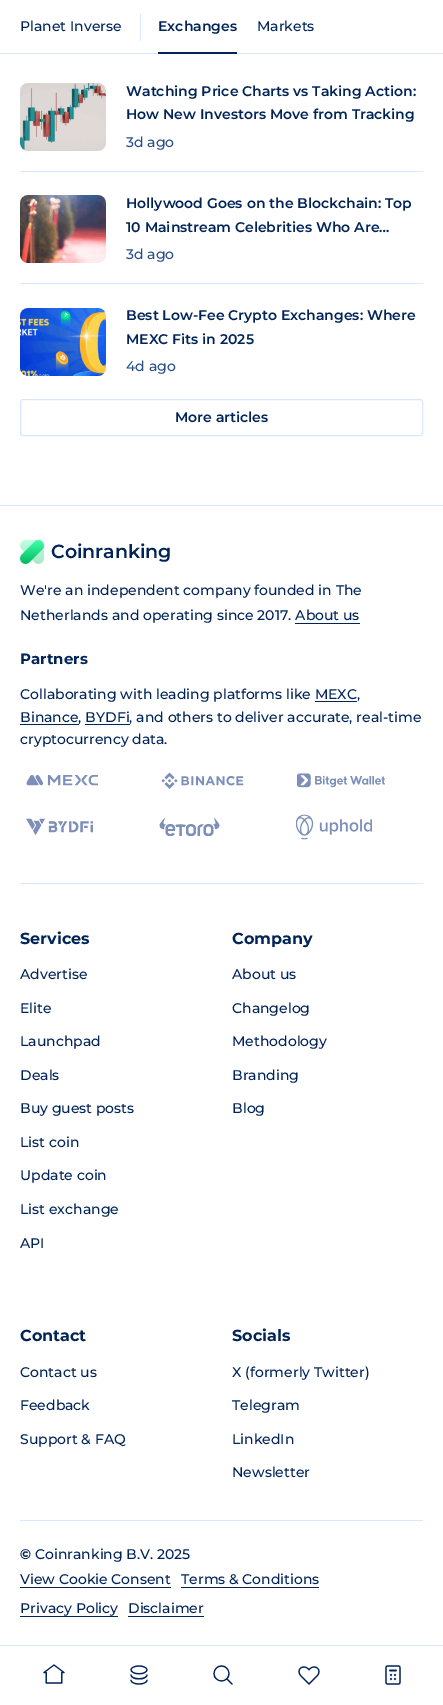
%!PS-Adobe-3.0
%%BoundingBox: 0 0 443 1705
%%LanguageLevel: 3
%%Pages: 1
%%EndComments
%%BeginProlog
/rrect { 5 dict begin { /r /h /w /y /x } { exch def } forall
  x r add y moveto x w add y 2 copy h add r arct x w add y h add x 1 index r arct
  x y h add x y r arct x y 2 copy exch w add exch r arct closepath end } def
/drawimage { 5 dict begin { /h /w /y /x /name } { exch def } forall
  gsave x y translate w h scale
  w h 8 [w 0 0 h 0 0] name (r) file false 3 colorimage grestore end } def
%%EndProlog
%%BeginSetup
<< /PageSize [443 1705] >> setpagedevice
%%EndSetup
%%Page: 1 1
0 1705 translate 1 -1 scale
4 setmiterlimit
1 setgray
0 0 443 1705 rectfill
0.847 0.906 1 setrgbcolor
0 53 443 1 rectfill
140 14 1 27 rectfill
0 0.137 0.345 setrgbcolor
158 52 79 2 rectfill
0.847 0.906 1 setrgbcolor
20 171 403 1 rectfill
(images/1.raw) 20 83 86 68 drawimage
20 283 403 1 rectfill
(images/2.raw) 20 195 86 68 drawimage
(images/3.raw) 20 308 86 68 drawimage
20.5 399.5 402 36 2.5 rrect stroke
0 505 443 1 rectfill
(images/4.raw) 20 540 24 24 drawimage
0 0.137 0.345 setrgbcolor
295 623 65 1 rectfill
315 701 42 1 rectfill
20 724 59 1 rectfill
85 724 45 1 rectfill
(images/5.raw) 26 775 72 11 drawimage
(images/6.raw) 161 772 83 17 drawimage
(images/7.raw) 296 773 90 15 drawimage
(images/8.raw) 26 818 67 17 drawimage
(images/9.raw) 159 817 61 20 drawimage
(images/10.raw) 296 814 76 26 drawimage
0.847 0.906 1 setrgbcolor
20 883 403 1 rectfill
20 1520 403 1 rectfill
0 0.137 0.345 setrgbcolor
20 1587 151 1 rectfill
181 1587 138 1 rectfill
20 1616 98 1 rectfill
128 1616 76 1 rectfill
0.847 0.906 1 setrgbcolor
0 1645 443 1 rectfill
(images/11.raw) 43 1664 22 20 drawimage
(images/12.raw) 130 1665 18 20 drawimage
(images/13.raw) 213 1665 20 20 drawimage
(images/14.raw) 298 1666 22 19 drawimage
(images/15.raw) 385 1665 16 20 drawimage
/Montserrat-Medium [14 0 0 -14 0 0] selectfont
0 0.137 0.345 setrgbcolor
20 31 moveto (Planet Inverse) show
/Montserrat-SemiBold [14 0 0 -14 0 0] selectfont
158 31 moveto (Exchanges) show
/Montserrat-Medium [14 0 0 -14 0 0] selectfont
257 31 moveto (Markets) show
/Montserrat-SemiBold [14 0 0 -14 0 0] selectfont
126 96 moveto (Watching Price Charts vs Taking Action:) show
126 119 moveto (How New Investors Move from Tracking) show
/Montserrat-Medium [14 0 0 -14 0 0] selectfont
0.149 0.302 0.537 setrgbcolor
126 147 moveto (3d ago) show
/Montserrat-SemiBold [14 0 0 -14 0 0] selectfont
0 0.137 0.345 setrgbcolor
126 208 moveto (Hollywood Goes on the Blockchain: Top) show
126 232 moveto (10 Mainstream Celebrities Who Are…) show
/Montserrat-Medium [14 0 0 -14 0 0] selectfont
0.149 0.302 0.537 setrgbcolor
126 259 moveto (3d ago) show
/Montserrat-SemiBold [14 0 0 -14 0 0] selectfont
0 0.137 0.345 setrgbcolor
126 320 moveto (Best Low-Fee Crypto Exchanges: Where) show
126 344 moveto (MEXC Fits in 2025) show
/Montserrat-Medium [14 0 0 -14 0 0] selectfont
0.149 0.302 0.537 setrgbcolor
126 371 moveto (4d ago) show
/Montserrat-SemiBold [14 0 0 -14 0 0] selectfont
0 0.137 0.345 setrgbcolor
175 422 moveto (More articles) show
/Montserrat-SemiBold [19 0 0 -19 0 0] selectfont
51 558 moveto (Coinranking) show
/Montserrat-Medium [14 0 0 -14 0 0] selectfont
20 595 moveto (We're an independent company founded in The) show
20 620 moveto (Netherlands and operating since 2017. About us) show
/Montserrat-Bold [15 0 0 -15 0 0] selectfont
20 664 moveto (Partners) show
/Montserrat-Medium [14 0 0 -14 0 0] selectfont
20 699 moveto (Collaborating with leading platforms like MEXC,) show
20 722 moveto (Binance, BYDFi, and others to deliver accurate, real-time) show
20 744 moveto (cryptocurrency data.) show
/Montserrat-Bold [16 0 0 -16 0 0] selectfont
20 944 moveto (Services) show
/Montserrat-Medium [14 0 0 -14 0 0] selectfont
20 979 moveto (Advertise) show
20 1013 moveto (Elite) show
20 1046 moveto (Launchpad) show
20 1080 moveto (Deals) show
20 1113 moveto (Buy guest posts) show
20 1147 moveto (List coin) show
20 1180 moveto (Update coin) show
20 1214 moveto (List exchange) show
20 1248 moveto (API) show
/Montserrat-Bold [16 0 0 -16 0 0] selectfont
232 944 moveto (Company) show
/Montserrat-Medium [14 0 0 -14 0 0] selectfont
232 979 moveto (About us) show
232 1013 moveto (Changelog) show
232 1046 moveto (Methodology) show
232 1080 moveto (Branding) show
232 1113 moveto (Blog) show
/Montserrat-Bold [16 0 0 -16 0 0] selectfont
20 1341 moveto (Contact) show
/Montserrat-Medium [14 0 0 -14 0 0] selectfont
20 1377 moveto (Contact us) show
20 1410 moveto (Feedback) show
20 1444 moveto (Support & FAQ) show
/Montserrat-Bold [16 0 0 -16 0 0] selectfont
232 1341 moveto (Socials) show
/Montserrat-Medium [14 0 0 -14 0 0] selectfont
232 1377 moveto (X \(formerly Twitter\)) show
232 1410 moveto (Telegram) show
232 1444 moveto (LinkedIn) show
232 1477 moveto (Newsletter) show
/Montserrat-Bold [14 0 0 -14 0 0] selectfont
20 1559 moveto (©) show
/Montserrat-Medium [14 0 0 -14 0 0] selectfont
35 1559 moveto (Coinranking B.V. 2025) show
20 1584 moveto (View Cookie Consent) show
181 1584 moveto (Terms & Conditions) show
20 1613 moveto (Privacy Policy) show
128 1613 moveto (Disclaimer) show
showpage
%%EOF
